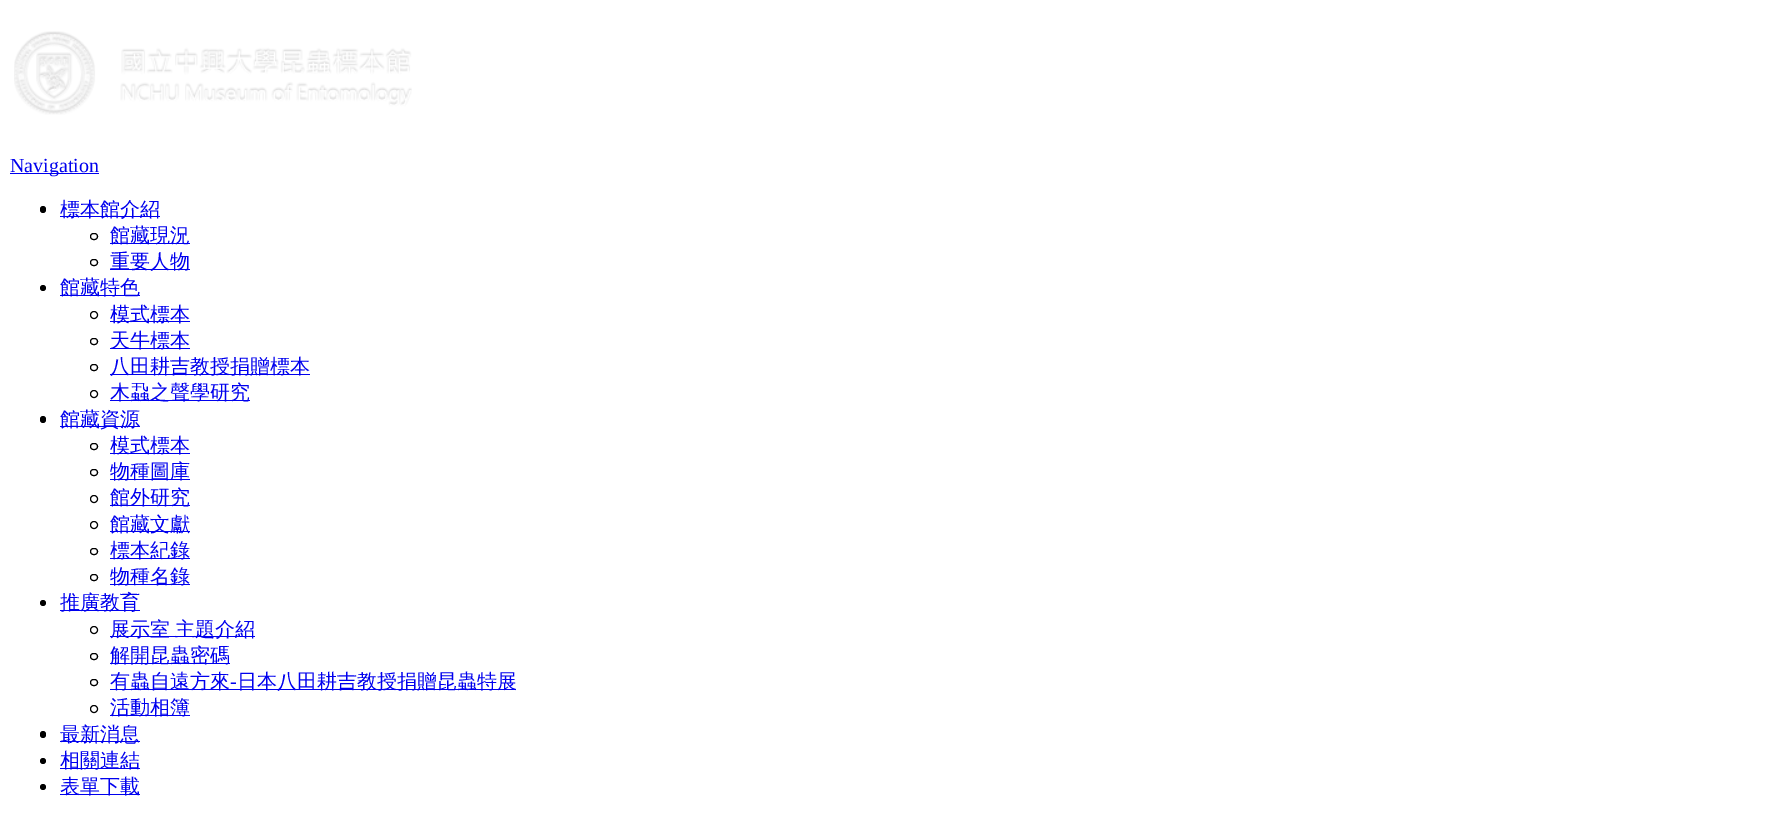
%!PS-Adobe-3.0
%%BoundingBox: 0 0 1778 821
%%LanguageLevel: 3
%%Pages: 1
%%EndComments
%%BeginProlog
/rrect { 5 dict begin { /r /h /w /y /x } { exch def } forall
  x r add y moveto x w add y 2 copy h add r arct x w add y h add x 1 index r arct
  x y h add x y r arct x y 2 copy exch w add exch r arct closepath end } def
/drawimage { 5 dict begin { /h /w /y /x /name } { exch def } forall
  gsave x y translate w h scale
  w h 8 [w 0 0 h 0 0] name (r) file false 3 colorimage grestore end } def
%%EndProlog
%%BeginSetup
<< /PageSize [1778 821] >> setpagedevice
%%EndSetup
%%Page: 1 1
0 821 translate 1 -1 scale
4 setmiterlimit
1 setgray
0 0 1778 821 rectfill
(images/1.raw) 14 31 398 84 drawimage
0 0 0.933 setrgbcolor
10 173 89 1 rectfill
0 setgray
40 206 6 7 3 rrect fill
0 0 0.933 setrgbcolor
60 216 100 1 rectfill
0 setgray
90.5 233.5 7 6 3 rrect stroke
0 0 0.933 setrgbcolor
110 243 80 1 rectfill
0 setgray
90.5 259.5 7 6 3 rrect stroke
0 0 0.933 setrgbcolor
110 269 80 1 rectfill
0 setgray
newpath 43 288 3 0 360 arc closepath fill
0 0 0.933 setrgbcolor
60 295 80 1 rectfill
0 setgray
newpath 94 315 3.5 0 360 arc closepath stroke
0 0 0.933 setrgbcolor
110 321 80 1 rectfill
0 setgray
90.5 338.5 7 6 3 rrect stroke
0 0 0.933 setrgbcolor
110 348 80 1 rectfill
0 setgray
90.5 364.5 7 6 3 rrect stroke
0 0 0.933 setrgbcolor
110 374 200 1 rectfill
0 setgray
newpath 94 394 3.5 0 360 arc closepath stroke
0 0 0.933 setrgbcolor
110 400 140 1 rectfill
0 setgray
40 416 6 7 3 rrect fill
0 0 0.933 setrgbcolor
60 426 80 1 rectfill
0 setgray
90.5 443.5 7 6 3 rrect stroke
0 0 0.933 setrgbcolor
110 453 80 1 rectfill
0 setgray
90.5 469.5 7 6 3 rrect stroke
0 0 0.933 setrgbcolor
110 479 80 1 rectfill
0 setgray
newpath 94 499 3.5 0 360 arc closepath stroke
0 0 0.933 setrgbcolor
110 505 80 1 rectfill
0 setgray
newpath 94 525 3.5 0 360 arc closepath stroke
0 0 0.933 setrgbcolor
110 531 80 1 rectfill
0 setgray
90.5 548.5 7 6 3 rrect stroke
0 0 0.933 setrgbcolor
110 558 80 1 rectfill
0 setgray
90.5 574.5 7 6 3 rrect stroke
0 0 0.933 setrgbcolor
110 584 80 1 rectfill
0 setgray
newpath 43 603 3 0 360 arc closepath fill
0 0 0.933 setrgbcolor
60 610 80 1 rectfill
0 setgray
newpath 94 630 3.5 0 360 arc closepath stroke
0 0 0.933 setrgbcolor
110 636 145 1 rectfill
0 setgray
90.5 653.5 7 6 3 rrect stroke
0 0 0.933 setrgbcolor
110 663 120 1 rectfill
0 setgray
90.5 679.5 7 6 3 rrect stroke
0 0 0.933 setrgbcolor
110 689 406 1 rectfill
0 setgray
newpath 94 709 3.5 0 360 arc closepath stroke
0 0 0.933 setrgbcolor
110 715 80 1 rectfill
0 setgray
40 731 6 7 3 rrect fill
0 0 0.933 setrgbcolor
60 741 80 1 rectfill
0 setgray
newpath 43 761 3 0 360 arc closepath fill
0 0 0.933 setrgbcolor
60 768 80 1 rectfill
0 setgray
newpath 43 787 3 0 360 arc closepath fill
0 0 0.933 setrgbcolor
60 794 80 1 rectfill
/LiberationSerif-Regular [20 0 0 -20 0 0] selectfont
10 172 moveto (Navigation) show
/WenQuanYiZenHei-Medium [20 0 0 -20 0 0] selectfont
60 216 moveto (標本館介紹) show
110 242 moveto (館藏現況) show
110 268 moveto (重要人物) show
60 294 moveto (館藏特色) show
110 321 moveto (模式標本) show
110 347 moveto (天牛標本) show
110 373 moveto (八田耕吉教授捐贈標本) show
110 399 moveto (木蝨之聲學研究) show
60 426 moveto (館藏資源) show
110 452 moveto (模式標本) show
110 478 moveto (物種圖庫) show
110 504 moveto (館外研究) show
110 531 moveto (館藏文獻) show
110 557 moveto (標本紀錄) show
110 583 moveto (物種名錄) show
60 609 moveto (推廣教育) show
110 636 moveto -1 0 32 (展示室 主題介紹) widthshow
110 662 moveto (解開昆蟲密碼) show
110 688 moveto (有蟲自遠方來) show
/LiberationSerif-Regular [20 0 0 -20 0 0] selectfont
230 688 moveto (-) show
/WenQuanYiZenHei-Medium [20 0 0 -20 0 0] selectfont
237 688 moveto (日本八田耕吉教授捐贈昆蟲特展) show
110 714 moveto (活動相簿) show
60 741 moveto (最新消息) show
60 767 moveto (相關連結) show
60 793 moveto (表單下載) show
showpage
%%EOF
